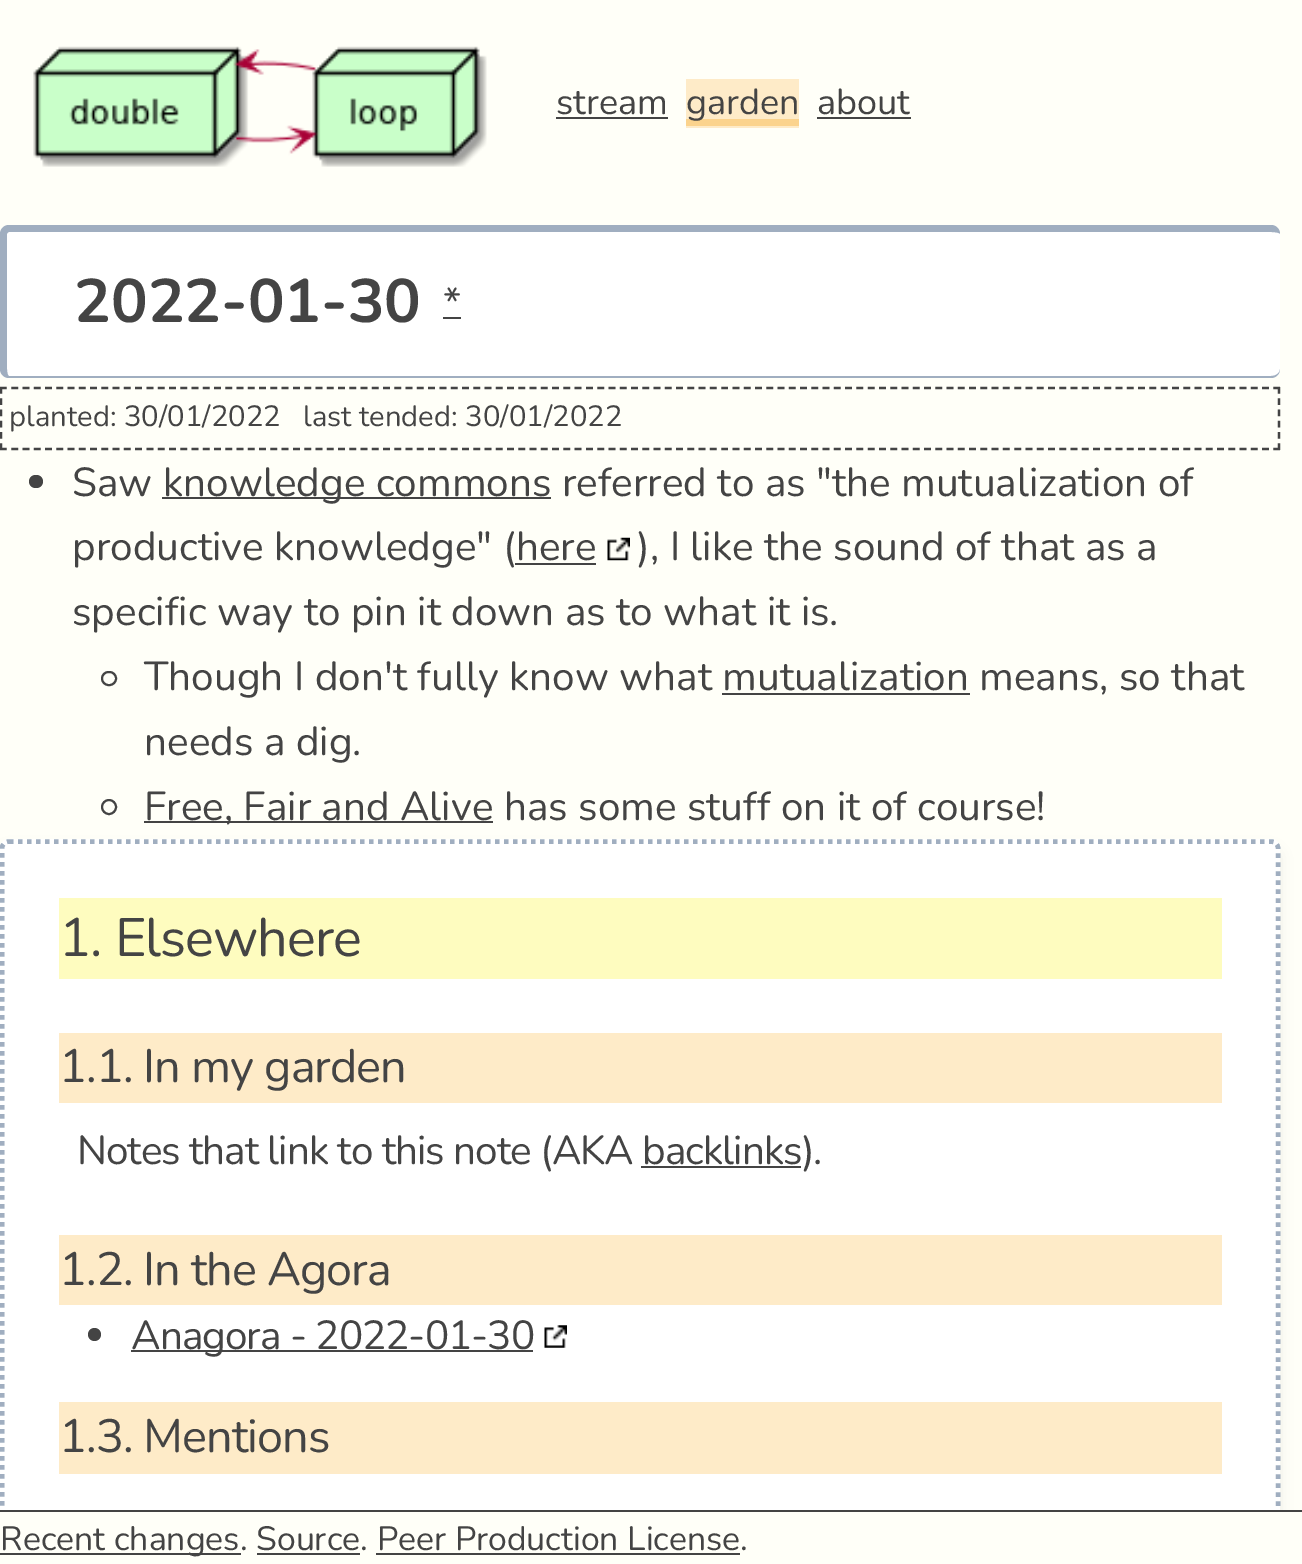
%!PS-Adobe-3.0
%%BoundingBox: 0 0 1302 1564
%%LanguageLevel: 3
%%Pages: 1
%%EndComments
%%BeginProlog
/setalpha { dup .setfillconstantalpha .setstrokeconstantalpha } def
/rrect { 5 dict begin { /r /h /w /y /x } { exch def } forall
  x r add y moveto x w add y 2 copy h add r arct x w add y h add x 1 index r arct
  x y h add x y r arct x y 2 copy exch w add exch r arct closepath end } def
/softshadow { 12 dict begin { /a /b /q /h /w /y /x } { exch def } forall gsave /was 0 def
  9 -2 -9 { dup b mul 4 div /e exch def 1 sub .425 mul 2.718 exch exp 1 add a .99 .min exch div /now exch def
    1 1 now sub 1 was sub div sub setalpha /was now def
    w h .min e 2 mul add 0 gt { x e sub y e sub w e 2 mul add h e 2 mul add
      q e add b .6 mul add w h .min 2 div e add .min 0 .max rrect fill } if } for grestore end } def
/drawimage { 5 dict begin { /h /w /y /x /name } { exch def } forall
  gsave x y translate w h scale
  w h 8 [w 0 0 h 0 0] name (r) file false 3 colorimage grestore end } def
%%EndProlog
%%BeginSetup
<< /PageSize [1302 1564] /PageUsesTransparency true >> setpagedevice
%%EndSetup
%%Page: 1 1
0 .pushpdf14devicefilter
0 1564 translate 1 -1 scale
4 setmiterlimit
1 1 0.973 setrgbcolor
0 0 1302 1564 rectfill
(images/1.raw) 33 46 454 121 drawimage
0.267 setgray
556 117 112 2 rectfill
0.996 0.922 0.784 setrgbcolor
686 79 113 49 rectfill
0.984 0.827 0.553 setrgbcolor
686 119 113 7 rectfill
0.267 setgray
817 117 94 2 rectfill
1 setgray
0 225 1280 153 9 rrect fill
0.627 0.682 0.753 setrgbcolor
newpath 9 225 moveto 1271 225 lineto 1276 225 1280 229 1280 234 curveto 1280 369 lineto 1280 374 1276 378 1271 378 curveto 9 378 lineto 4 378 0 374 0 369 curveto 0 234 lineto 0 229 4 225 9 225 curveto closepath 9 232 moveto 1271 232 lineto 1276 232 1280 233 1280 234 curveto 1280 369 lineto 1280 373 1276 376 1271 376 curveto 9 376 lineto 8 376 7 373 7 369 curveto 7 234 lineto 7 233 8 232 9 232 curveto closepath eofill
0.267 setgray
443 317 18 2 rectfill
2.2 setlinewidth
[6.75 4.52] 0 setdash
newpath 0 388 moveto 1280 388 lineto stroke
[6.75 4.5] 0 setdash
newpath 1279 387 moveto 1279 450 lineto stroke
[6.75 4.52] 0 setdash
newpath 0 449 moveto 1280 449 lineto stroke
[6.75 4.5] 0 setdash
newpath 1 387 moveto 1 450 lineto stroke
29 475 14 13 6.5 rrect fill
162 497 389 2 rectfill
(images/2.raw) 607 537 23 24 drawimage
515 563 81 2 rectfill
2 setlinewidth
[] 0 setdash
102 672 14 13 6.5 rrect stroke
722 693 248 2 rectfill
newpath 109 807 7 0 360 arc closepath stroke
144 821 349 2 rectfill
0 1510 1302 2 rectfill
0 1553 241 2 rectfill
257 1553 103 2 rectfill
376 1553 364 2 rectfill
gsave
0 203 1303 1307 rectclip
0 setgray
2 851 1276 688 7 7 0.1 softshadow
grestore
1 setgray
newpath 9 839 moveto 1271 839 lineto 1276 839 1280 843 1280 848 curveto 1280 1510 lineto 0 1510 lineto 0 848 lineto 0 843 4 839 9 839 curveto closepath fill
gsave
0 203 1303 1307 rectclip
0.627 0.682 0.753 setrgbcolor
4.5 setlinewidth
[4.5 4.5] 0 setdash
newpath 9 841.5 moveto 1271 841.5 lineto 1275 841.5 1278 844.5 1278 848 curveto 1278 1523 lineto 1278 1527 1275 1530 1271 1530 curveto 9 1530 lineto 5.5 1530 2 1527 2 1523 curveto 2 848 lineto 2 844.5 5.5 841.5 9 841.5 curveto closepath stroke
grestore
0.996 0.988 0.749 setrgbcolor
59 898 1163 81 rectfill
0.996 0.922 0.784 setrgbcolor
59 1033 1163 70 rectfill
0.267 setgray
641 1166 160 2 rectfill
0.996 0.922 0.784 setrgbcolor
59 1235 1163 70 rectfill
0.267 setgray
newpath 94.5 1334.5 6.5 0 360 arc closepath fill
131 1350 402 2 rectfill
(images/3.raw) 544 1325 23 23 drawimage
0.996 0.922 0.784 setrgbcolor
59 1402 1163 72 rectfill
/Nunito-ExtraLight [36 0 0 -36 0 0] selectfont
0.267 setgray
556 114 moveto (stream) show
686 114 moveto (garden) show
817 114 moveto (about) show
/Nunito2-ExtraLight [61.25 0 0 -61.25 0 0] selectfont
74 322 moveto (2022-01-30) show
/Nunito-ExtraLight [40.5 0 0 -40.5 0 0] selectfont
443 316 moveto (*) show
/Nunito-ExtraLight [29.25 0 0 -29.25 0 0] selectfont
9 426 moveto (planted: 30/01/2022) show
303 426 moveto (last tended: 30/01/2022) show
/Nunito-ExtraLight [40.5 0 0 -40.5 0 0] selectfont
72 496 moveto (Saw) show
163 496 moveto (knowledge commons referred to as "the mutualization of) show
72 560 moveto (productive knowledge" \(here) show
637 560 moveto (\), I like the sound of that as a) show
72 625 moveto (specific way to pin it down as to what it is.) show
144 690 moveto (Though I don't fully know what mutualization means, so that) show
144 755 moveto (needs a dig.) show
144 820 moveto (Free, Fair and Alive has some stuff on it of course!) show
/Nunito-ExtraLight [54 0 0 -54 0 0] selectfont
59 956 moveto -1 0 (1. Elsewhere) ashow
/Nunito-ExtraLight [46.75 0 0 -46.75 0 0] selectfont
59 1082 moveto -1 0 (1.1. In my garden) ashow
/Nunito-ExtraLight [40.5 0 0 -40.5 0 0] selectfont
77 1164 moveto -1 0 (Notes that link to this note \(AKA backlinks\).) ashow
/Nunito-ExtraLight [46.75 0 0 -46.75 0 0] selectfont
59 1285 moveto -1 0 (1.2. In the Agora) ashow
/Nunito-ExtraLight [40.5 0 0 -40.5 0 0] selectfont
131 1349 moveto -1 0 (Anagora - 2022-01-30) ashow
/Nunito-ExtraLight [46.75 0 0 -46.75 0 0] selectfont
59 1452 moveto -1 0 (1.3. Mentions) ashow
/Nunito-ExtraLight [33.75 0 0 -33.75 0 0] selectfont
0 1550 moveto (Recent changes. Source. Peer Production License.) show
.poppdf14devicefilter showpage
%%EOF
